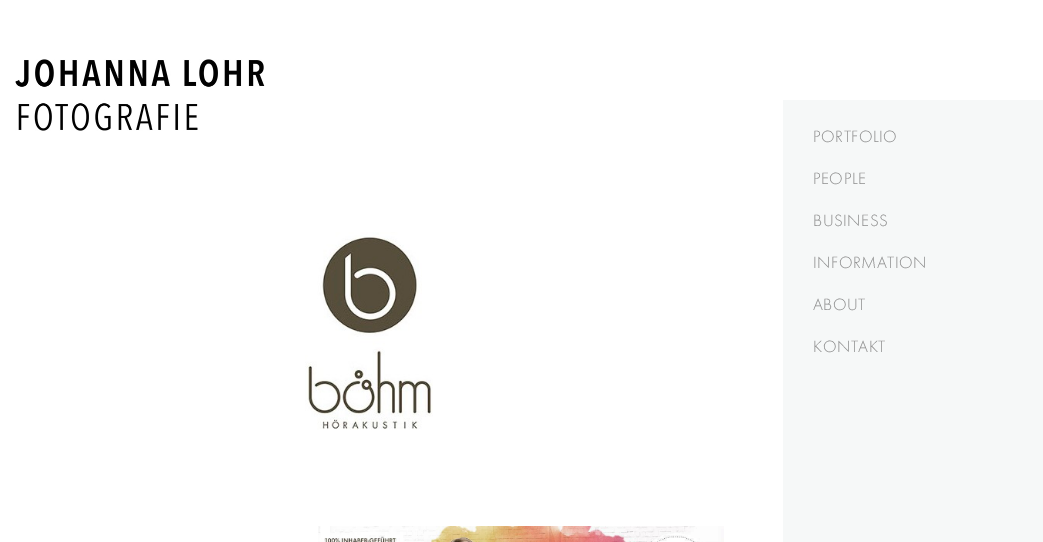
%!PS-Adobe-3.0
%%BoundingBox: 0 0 1043 542
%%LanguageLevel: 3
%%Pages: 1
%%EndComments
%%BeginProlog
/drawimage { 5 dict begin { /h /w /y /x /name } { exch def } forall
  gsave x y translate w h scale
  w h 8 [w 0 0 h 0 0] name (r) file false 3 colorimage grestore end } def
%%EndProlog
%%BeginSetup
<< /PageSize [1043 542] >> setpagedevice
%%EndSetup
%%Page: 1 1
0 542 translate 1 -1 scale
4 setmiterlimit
1 setgray
0 0 1043 542 rectfill
(images/1.raw) 305 232 128 198 drawimage
(images/2.raw) 318 526 406 16 drawimage
(images/3.raw) 15 59 250 72 drawimage
0.965 0.973 0.973 setrgbcolor
783 100 260 442 rectfill
/FuturaPT-Light [17 0 0 -17 0 0] selectfont
0.541 setgray
813 142 moveto 0.5 0 (PORTFOLIO) ashow
813 184 moveto 0.5 0 (PEOPLE) ashow
813 226 moveto 0.5 0 (BUSINESS) ashow
813 268 moveto 0.5 0 (INFORMATION) ashow
813 310 moveto 0.5 0 (ABOUT) ashow
813 352 moveto 0.5 0 (KONTAKT) ashow
showpage
%%EOF
